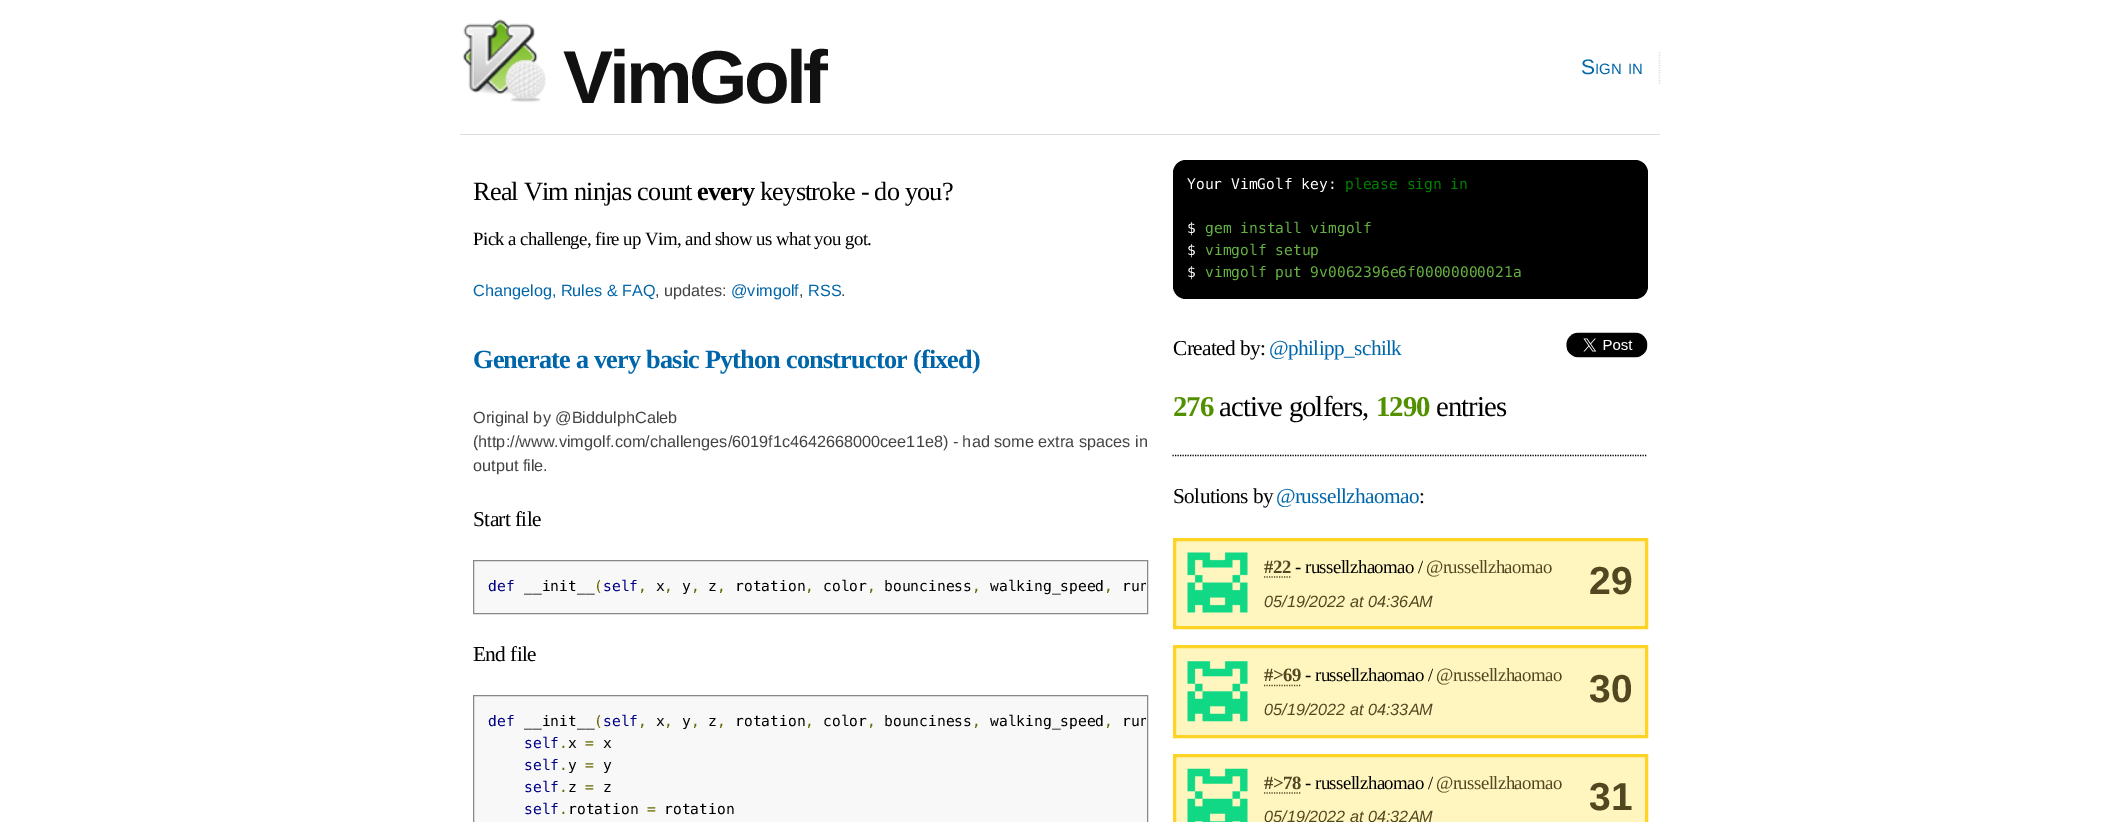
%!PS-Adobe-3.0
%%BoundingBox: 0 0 2120 822
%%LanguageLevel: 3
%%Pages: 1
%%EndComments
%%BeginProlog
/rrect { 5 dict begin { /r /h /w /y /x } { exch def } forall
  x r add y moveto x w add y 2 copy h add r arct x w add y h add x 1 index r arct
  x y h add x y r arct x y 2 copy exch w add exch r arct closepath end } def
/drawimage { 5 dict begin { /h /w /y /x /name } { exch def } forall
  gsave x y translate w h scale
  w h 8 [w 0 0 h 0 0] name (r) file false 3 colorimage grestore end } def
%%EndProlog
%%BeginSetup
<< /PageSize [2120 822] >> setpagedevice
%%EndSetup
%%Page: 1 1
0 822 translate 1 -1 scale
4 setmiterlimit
1 setgray
0 0 2120 822 rectfill
0.867 setgray
460 134 1200 1 rectfill
(images/1.raw) 462 18 84 85 drawimage
1.2 setlinewidth
[1.25 1.25] 0 setdash
newpath 1659.5 52.5 moveto 1659.5 84 lineto stroke
0 setgray
1173 160 475 139 13 rrect fill
0.973 setgray
newpath 473.5 560.5 moveto 1147.5 560.5 lineto 1147.5 613.5 lineto 473.5 613.5 lineto closepath gsave fill grestore
0.533 setgray
1 setlinewidth
[] 0 setdash
stroke
0.973 setgray
newpath 473.5 695.5 moveto 1147.5 695.5 lineto 1147.5 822.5 lineto 473.5 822.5 lineto closepath gsave fill grestore
0.533 setgray
stroke
(images/2.raw) 1566 332 82 26 drawimage
0 setgray
1.2 setlinewidth
[1.25 1.25] 0 setdash
newpath 1172.5 455.5 moveto 1647.5 455.5 lineto stroke
1 0.965 0.749 setrgbcolor
newpath 1174.5 539.5 moveto 1646.5 539.5 lineto 1646.5 627.5 lineto 1174.5 627.5 lineto closepath gsave fill grestore
1 0.827 0.141 setrgbcolor
3 setlinewidth
[] 0 setdash
stroke
(images/3.raw) 1187 552 61 61 drawimage
0.318 0.278 0.129 setrgbcolor
1.2 setlinewidth
[1.25 1.25] 0 setdash
newpath 1264 577 moveto 1291 577 lineto stroke
1 0.965 0.749 setrgbcolor
newpath 1174.5 646.5 moveto 1646.5 646.5 lineto 1646.5 736.5 lineto 1174.5 736.5 lineto closepath gsave fill grestore
1 0.827 0.141 setrgbcolor
3 setlinewidth
[] 0 setdash
stroke
(images/4.raw) 1187 661 61 61 drawimage
0.318 0.278 0.129 setrgbcolor
1.2 setlinewidth
[1.25 1.25] 0 setdash
newpath 1264 685.5 moveto 1301 685.5 lineto stroke
1 0.965 0.749 setrgbcolor
newpath 1174.5 755.5 moveto 1646.5 755.5 lineto 1646.5 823.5 lineto 1174.5 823.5 lineto closepath gsave fill grestore
1 0.827 0.141 setrgbcolor
3 setlinewidth
[] 0 setdash
stroke
(images/5.raw) 1187 768 61 54 drawimage
0.318 0.278 0.129 setrgbcolor
1.2 setlinewidth
[1.25 1.25] 0 setdash
newpath 1264 793 moveto 1301 793 lineto stroke
/LiberationSans-Bold [75 0 0 -75 0 0] selectfont
0.067 setgray
563 103 moveto -3.75 0 (VimGolf) ashow
/LiberationSans-Regular [21 0 0 -21 0 0] selectfont
0 0.4 0.667 setrgbcolor
1581 74 moveto (S) show
/LiberationSans-Regular [15 0 0 -15 0 0] selectfont
1595 74 moveto (IGN) show
1628 74 moveto (IN) show
/LiberationSerif-Regular [26.25 0 0 -26.25 0 0] selectfont
0 setgray
473 200 moveto -0.8 0 (Real Vim ninjas count) ashow
/LiberationSerif-Bold [26.25 0 0 -26.25 0 0] selectfont
697 200 moveto -0.8 0 (every) ashow
/LiberationSerif-Regular [26.25 0 0 -26.25 0 0] selectfont
760 200 moveto -0.8 0 (keystroke - do you?) ashow
/LiberationSerif-Regular [18.75 0 0 -18.75 0 0] selectfont
473 245 moveto -0.55 0 (Pick a challenge, fire up Vim, and show us what you got.) ashow
/LiberationSans-Regular [16.25 0 0 -16.25 0 0] selectfont
0 0.4 0.667 setrgbcolor
473 296 moveto (Changelog, Rules & FAQ) show
0.267 setgray
655 296 moveto (, updates:) show
0 0.4 0.667 setrgbcolor
731 296 moveto (@vimgolf) show
0.267 setgray
799 296 moveto (,) show
0 0.4 0.667 setrgbcolor
808 296 moveto (RSS) show
0.267 setgray
841 296 moveto (.) show
/DejaVuSansMono-Regular [14.6 0 0 -14.6 0 0] selectfont
1 setgray
1187 189 moveto (Your VimGolf key:) show
0 0.502 0 setrgbcolor
1345 189 moveto (please sign in) show
1 setgray
1187 233 moveto ($) show
0.396 0.69 0.259 setrgbcolor
1205 233 moveto (gem install vimgolf) show
1 setgray
1187 255 moveto ($) show
0.396 0.69 0.259 setrgbcolor
1205 255 moveto (vimgolf setup) show
1 setgray
1187 277 moveto ($) show
0.396 0.69 0.259 setrgbcolor
1205 277 moveto (vimgolf put 9v0062396e6f00000000021a) show
/LiberationSerif-Bold [26.25 0 0 -26.25 0 0] selectfont
0 0.4 0.667 setrgbcolor
473 368 moveto -0.8 0 (Generate a very basic Python constructor \(fixed\)) ashow
/LiberationSans-Regular [16.25 0 0 -16.25 0 0] selectfont
0.267 setgray
473 423 moveto (Original by @BiddulphCaleb) show
473 447 moveto (\(http://www.vimgolf.com/challenges/6019f1c4642668000cee11e8\) - had some extra spaces in) show
473 471 moveto (output file.) show
/LiberationSerif-Regular [21.25 0 0 -21.25 0 0] selectfont
0 setgray
473 526 moveto -0.6 0 (Start file) ashow
/DejaVuSansMono-Regular [14.6 0 0 -14.6 0 0] selectfont
0 0 0.533 setrgbcolor
488 591 moveto (def) show
0 setgray
524 591 moveto (__init__) show
0.4 0.4 0 setrgbcolor
594 591 moveto (\() show
0 0 0.533 setrgbcolor
603 591 moveto (self) show
0.4 0.4 0 setrgbcolor
638 591 moveto (,) show
0 setgray
656 591 moveto (x) show
0.4 0.4 0 setrgbcolor
664 591 moveto (,) show
0 setgray
682 591 moveto (y) show
0.4 0.4 0 setrgbcolor
691 591 moveto (,) show
0 setgray
708 591 moveto (z) show
0.4 0.4 0 setrgbcolor
717 591 moveto (,) show
0 setgray
735 591 moveto (rotation) show
0.4 0.4 0 setrgbcolor
805 591 moveto (,) show
0 setgray
823 591 moveto (color) show
0.4 0.4 0 setrgbcolor
867 591 moveto (,) show
0 setgray
884 591 moveto (bounciness) show
0.4 0.4 0 setrgbcolor
972 591 moveto (,) show
0 setgray
990 591 moveto (walking_speed) show
0.4 0.4 0 setrgbcolor
1104 591 moveto (,) show
gsave
474 561 672 52 rectclip
0 setgray
1122 591 moveto (run) show
grestore
/LiberationSerif-Regular [21.25 0 0 -21.25 0 0] selectfont
0 setgray
473 661 moveto -0.6 0 (End file) ashow
/DejaVuSansMono-Regular [14.6 0 0 -14.6 0 0] selectfont
0 0 0.533 setrgbcolor
488 726 moveto (def) show
0 setgray
524 726 moveto (__init__) show
0.4 0.4 0 setrgbcolor
594 726 moveto (\() show
0 0 0.533 setrgbcolor
603 726 moveto (self) show
0.4 0.4 0 setrgbcolor
638 726 moveto (,) show
0 setgray
656 726 moveto (x) show
0.4 0.4 0 setrgbcolor
664 726 moveto (,) show
0 setgray
682 726 moveto (y) show
0.4 0.4 0 setrgbcolor
691 726 moveto (,) show
0 setgray
708 726 moveto (z) show
0.4 0.4 0 setrgbcolor
717 726 moveto (,) show
0 setgray
735 726 moveto (rotation) show
0.4 0.4 0 setrgbcolor
805 726 moveto (,) show
0 setgray
823 726 moveto (color) show
0.4 0.4 0 setrgbcolor
867 726 moveto (,) show
0 setgray
884 726 moveto (bounciness) show
0.4 0.4 0 setrgbcolor
972 726 moveto (,) show
0 setgray
990 726 moveto (walking_speed) show
0.4 0.4 0 setrgbcolor
1104 726 moveto (,) show
gsave
474 696 672 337 rectclip
0 setgray
1122 726 moveto (run) show
grestore
0 0 0.533 setrgbcolor
524 748 moveto (self) show
0 setgray
568 748 moveto (x) show
0.4 0.4 0 setrgbcolor
585 748 moveto (=) show
0 setgray
603 748 moveto (x) show
0.4 0.4 0 setrgbcolor
559 748 moveto (.) show
0 0 0.533 setrgbcolor
524 770 moveto (self) show
0 setgray
568 770 moveto (y) show
0.4 0.4 0 setrgbcolor
585 770 moveto (=) show
0 setgray
603 770 moveto (y) show
0.4 0.4 0 setrgbcolor
559 770 moveto (.) show
0 0 0.533 setrgbcolor
524 792 moveto (self) show
0 setgray
568 792 moveto (z) show
0.4 0.4 0 setrgbcolor
585 792 moveto (=) show
0 setgray
603 792 moveto (z) show
0.4 0.4 0 setrgbcolor
559 792 moveto (.) show
0 0 0.533 setrgbcolor
524 814 moveto (self) show
0 setgray
568 814 moveto (rotation) show
0.4 0.4 0 setrgbcolor
647 814 moveto (=) show
0 setgray
664 814 moveto (rotation) show
0.4 0.4 0 setrgbcolor
559 814 moveto (.) show
/LiberationSerif-Regular [21.25 0 0 -21.25 0 0] selectfont
0 setgray
1173 355 moveto -0.6 0 (Created by:) ashow
0 0.4 0.667 setrgbcolor
1269 355 moveto -0.6 0 (@philipp_schilk) ashow
/LiberationSerif-Bold [28.75 0 0 -28.75 0 0] selectfont
0.322 0.565 0 setrgbcolor
1173 416 moveto -0.9 0 (276) ashow
/LiberationSerif-Regular [28.75 0 0 -28.75 0 0] selectfont
0 setgray
1219 416 moveto -0.9 0 (active golfers,) ashow
/LiberationSerif-Bold [28.75 0 0 -28.75 0 0] selectfont
0.322 0.565 0 setrgbcolor
1376 416 moveto -0.9 0 (1290) ashow
/LiberationSerif-Regular [28.75 0 0 -28.75 0 0] selectfont
0 setgray
1436 416 moveto -0.9 0 (entries) ashow
/LiberationSerif-Regular [21.25 0 0 -21.25 0 0] selectfont
1173 503 moveto -0.6 0 (Solutions by) ashow
0 0.4 0.667 setrgbcolor
1276 503 moveto -0.6 0 (@russellzhaomao) ashow
0 setgray
1419 503 moveto -0.6 0 (:) ashow
/LiberationSerif-Bold [18.75 0 0 -18.75 0 0] selectfont
0.318 0.278 0.129 setrgbcolor
1264 573 moveto -0.55 0 (#22) ashow
/LiberationSerif-Regular [18.75 0 0 -18.75 0 0] selectfont
0 setgray
1295 573 moveto -0.55 0 (- russellzhaomao /) ashow
0.318 0.278 0.129 setrgbcolor
1426 573 moveto -0.55 0 (@russellzhaomao) ashow
/LiberationSans-Bold [39 0 0 -39 0 0] selectfont
1589 594 moveto (29) show
/LiberationSans-Italic [16.25 0 0 -16.25 0 0] selectfont
1264 607 moveto (05/19/2022 at 04:36AM) show
/LiberationSerif-Bold [18.75 0 0 -18.75 0 0] selectfont
1264 681 moveto -0.55 0 (#>69) ashow
/LiberationSerif-Regular [18.75 0 0 -18.75 0 0] selectfont
0 setgray
1305 681 moveto -0.55 0 (- russellzhaomao /) ashow
0.318 0.278 0.129 setrgbcolor
1436 681 moveto -0.55 0 (@russellzhaomao) ashow
/LiberationSans-Bold [39 0 0 -39 0 0] selectfont
1589 702 moveto (30) show
/LiberationSans-Italic [16.25 0 0 -16.25 0 0] selectfont
1264 715 moveto (05/19/2022 at 04:33AM) show
/LiberationSerif-Bold [18.75 0 0 -18.75 0 0] selectfont
1264 789 moveto -0.55 0 (#>78) ashow
/LiberationSerif-Regular [18.75 0 0 -18.75 0 0] selectfont
0 setgray
1305 789 moveto -0.55 0 (- russellzhaomao /) ashow
0.318 0.278 0.129 setrgbcolor
1436 789 moveto -0.55 0 (@russellzhaomao) ashow
/LiberationSans-Bold [39 0 0 -39 0 0] selectfont
1589 810 moveto (31) show
/LiberationSans-Italic [16.25 0 0 -16.25 0 0] selectfont
1264 822 moveto (05/19/2022 at 04:32AM) show
showpage
%%EOF
